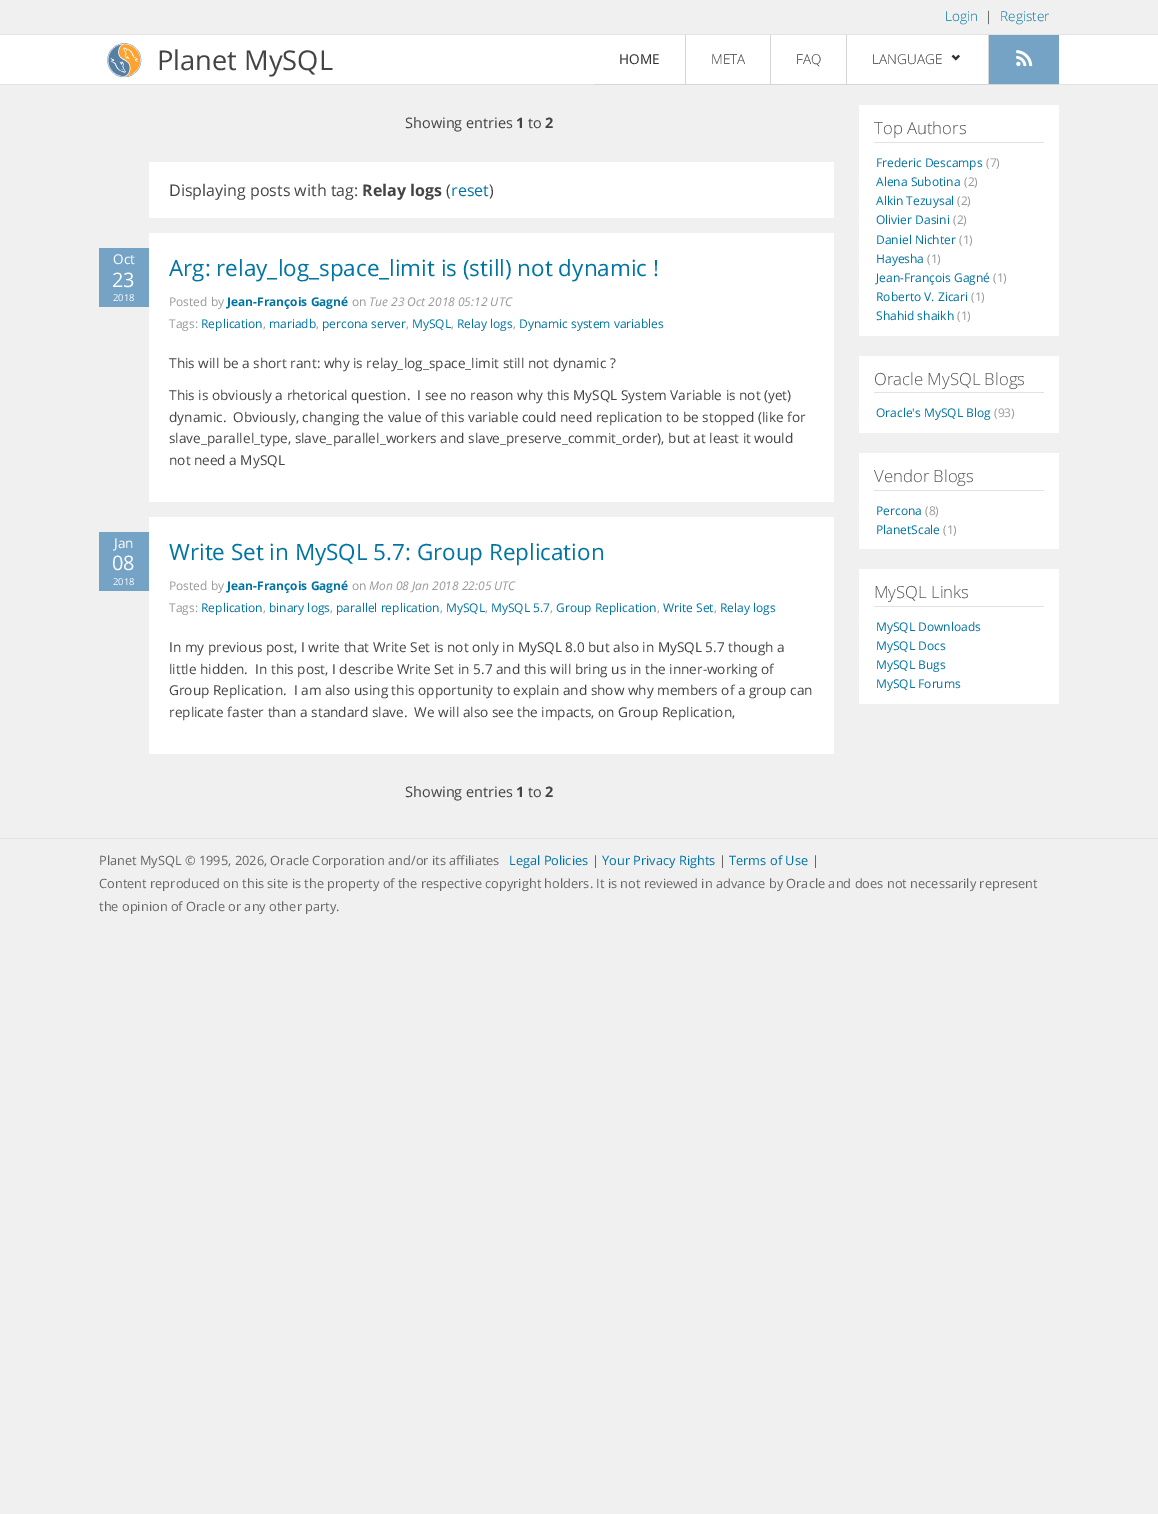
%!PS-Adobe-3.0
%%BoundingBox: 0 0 1158 1514
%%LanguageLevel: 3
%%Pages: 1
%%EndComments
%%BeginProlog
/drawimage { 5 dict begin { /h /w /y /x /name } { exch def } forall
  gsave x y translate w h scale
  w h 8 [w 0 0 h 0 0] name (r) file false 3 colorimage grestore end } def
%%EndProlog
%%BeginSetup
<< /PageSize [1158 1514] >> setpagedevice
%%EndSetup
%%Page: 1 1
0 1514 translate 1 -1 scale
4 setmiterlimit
0.941 setgray
0 0 1158 1514 rectfill
0.886 setgray
0 34 1158 1 rectfill
1 setgray
0 35 1158 49 rectfill
0.886 setgray
0 84 1158 1 rectfill
(images/1.raw) 107 43 35 34 drawimage
0.824 0.839 0.835 setrgbcolor
594 84 465 1 rectfill
685 35 1 50 rectfill
770 35 1 50 rectfill
846 35 1 50 rectfill
(images/2.raw) 951 54 9 7 drawimage
988 35 1 50 rectfill
0.455 0.639 0.776 setrgbcolor
989 35 70 49 rectfill
(images/3.raw) 1016 50 17 17 drawimage
1 setgray
149 162 685 56 rectfill
149 233 685 269 rectfill
0.455 0.639 0.776 setrgbcolor
99 248 50 59 rectfill
1 setgray
149 517 685 237 rectfill
0.455 0.639 0.776 setrgbcolor
99 532 50 59 rectfill
1 setgray
859 105 200 231 rectfill
0.886 setgray
874 142 170 1 rectfill
1 setgray
859 356 200 77 rectfill
0.886 setgray
874 392 170 1 rectfill
1 setgray
859 453 200 96 rectfill
0.886 setgray
874 490 170 1 rectfill
1 setgray
859 569 200 135 rectfill
0.886 setgray
874 606 170 1 rectfill
0 838 1158 1 rectfill
/OpenSans-Light [13.6 0 0 -13.6 0 0] selectfont
0 0.455 0.639 setrgbcolor
945 21 moveto (Login) show
0.267 setgray
985 21 moveto (|) show
0 0.455 0.639 setrgbcolor
1000 21 moveto (Register) show
/OpenSans-Regular [27.25 0 0 -27.25 0 0] selectfont
0.267 setgray
157 70 moveto (Planet MySQL) show
/OpenSans-Regular [13.6 0 0 -13.6 0 0] selectfont
0.192 setgray
619 64 moveto (HOME) show
/OpenSans-Light [13.6 0 0 -13.6 0 0] selectfont
711 64 moveto (META) show
796 64 moveto (FAQ) show
872 64 moveto (LANGUAGE) show
/OpenSans-Regular [14.5 0 0 -14.5 0 0] selectfont
0.267 setgray
405 128 moveto (Showing entries) show
/OpenSans-Bold [14.5 0 0 -14.5 0 0] selectfont
516 128 moveto (1) show
/OpenSans-Regular [14.5 0 0 -14.5 0 0] selectfont
528 128 moveto (to) show
/OpenSans-Bold [14.5 0 0 -14.5 0 0] selectfont
545 128 moveto (2) show
/OpenSans-Regular [16 0 0 -16 0 0] selectfont
169 196 moveto (Displaying posts with tag:) show
/OpenSans-Bold [16 0 0 -16 0 0] selectfont
362 196 moveto (Relay logs) show
/OpenSans-Regular [16 0 0 -16 0 0] selectfont
446 196 moveto (\() show
0 0.455 0.639 setrgbcolor
451 196 moveto (reset) show
0.267 setgray
489 196 moveto (\)) show
/OpenSans-Regular [13.6 0 0 -13.6 0 0] selectfont
1 setgray
113 264 moveto (Oct) show
/OpenSans-Regular [20 0 0 -20 0 0] selectfont
112 287 moveto (23) show
/OpenSans-Regular [9.5 0 0 -9.5 0 0] selectfont
113 301 moveto (2018) show
/OpenSans-Regular [22.4 0 0 -22.4 0 0] selectfont
0 0.455 0.639 setrgbcolor
169 276 moveto (Arg: relay_log_space_limit is \(still\) not dynamic !) show
/OpenSans-Regular [12 0 0 -12 0 0] selectfont
0.6 setgray
169 306 moveto (Posted by) show
/OpenSans-Bold [12 0 0 -12 0 0] selectfont
0 0.455 0.639 setrgbcolor
227 306 moveto (Jean-François Gagné) show
/OpenSans-Regular [12 0 0 -12 0 0] selectfont
0.6 setgray
352 306 moveto (on) show
/OpenSans-Italic [12 0 0 -12 0 0] selectfont
369 306 moveto (Tue 23 Oct 2018 05:12 UTC) show
/OpenSans-Regular [12 0 0 -12 0 0] selectfont
169 328 moveto (Tags:) show
0 0.455 0.639 setrgbcolor
201 328 moveto (Replication) show
0.6 setgray
263 328 moveto (,) show
0 0.455 0.639 setrgbcolor
269 328 moveto (mariadb) show
0.6 setgray
316 328 moveto (,) show
0 0.455 0.639 setrgbcolor
322 328 moveto (percona server) show
0.6 setgray
406 328 moveto (,) show
0 0.455 0.639 setrgbcolor
412 328 moveto (MySQL) show
0.6 setgray
451 328 moveto (,) show
0 0.455 0.639 setrgbcolor
457 328 moveto (Relay logs) show
0.6 setgray
513 328 moveto (,) show
0 0.455 0.639 setrgbcolor
519 328 moveto (Dynamic system variables) show
/OpenSans-Regular [13.6 0 0 -13.6 0 0] selectfont
0.267 setgray
169 368 moveto (This will be a short rant: why is relay_log_space_limit still not dynamic ?) show
169 400 moveto (This is obviously a rhetorical question.  I see no reason why this MySQL System Variable is not \(yet\)) show
169 422 moveto (dynamic.) show
233 422 moveto (Obviously, changing the value of this variable could need replication to be stopped \(like for) show
169 443 moveto (slave_parallel_type, slave_parallel_workers and slave_preserve_commit_order\), but at least it would) show
169 465 moveto (not need a MySQL) show
1 setgray
114 548 moveto (Jan) show
/OpenSans-Regular [20 0 0 -20 0 0] selectfont
112 570 moveto (08) show
/OpenSans-Regular [9.5 0 0 -9.5 0 0] selectfont
113 585 moveto (2018) show
/OpenSans-Regular [22.4 0 0 -22.4 0 0] selectfont
0 0.455 0.639 setrgbcolor
169 560 moveto (Write Set in MySQL 5.7: Group Replication) show
/OpenSans-Regular [12 0 0 -12 0 0] selectfont
0.6 setgray
169 590 moveto (Posted by) show
/OpenSans-Bold [12 0 0 -12 0 0] selectfont
0 0.455 0.639 setrgbcolor
227 590 moveto (Jean-François Gagné) show
/OpenSans-Regular [12 0 0 -12 0 0] selectfont
0.6 setgray
352 590 moveto (on) show
/OpenSans-Italic [12 0 0 -12 0 0] selectfont
369 590 moveto (Mon 08 Jan 2018 22:05 UTC) show
/OpenSans-Regular [12 0 0 -12 0 0] selectfont
169 612 moveto (Tags:) show
0 0.455 0.639 setrgbcolor
201 612 moveto (Replication) show
0.6 setgray
263 612 moveto (,) show
0 0.455 0.639 setrgbcolor
269 612 moveto (binary logs) show
0.6 setgray
330 612 moveto (,) show
0 0.455 0.639 setrgbcolor
336 612 moveto (parallel replication) show
0.6 setgray
440 612 moveto (,) show
0 0.455 0.639 setrgbcolor
446 612 moveto (MySQL) show
0.6 setgray
485 612 moveto (,) show
0 0.455 0.639 setrgbcolor
491 612 moveto (MySQL 5.7) show
0.6 setgray
550 612 moveto (,) show
0 0.455 0.639 setrgbcolor
556 612 moveto (Group Replication) show
0.6 setgray
657 612 moveto (,) show
0 0.455 0.639 setrgbcolor
663 612 moveto (Write Set) show
0.6 setgray
714 612 moveto (,) show
0 0.455 0.639 setrgbcolor
720 612 moveto (Relay logs) show
/OpenSans-Regular [13.6 0 0 -13.6 0 0] selectfont
0.267 setgray
169 652 moveto (In my previous post, I write that Write Set is not only in MySQL 8.0 but also in MySQL 5.7 though a) show
169 674 moveto (little hidden.  In this post, I describe Write Set in 5.7 and this will bring us in the inner-working of) show
169 695 moveto (Group Replication.  I am also using this opportunity to explain and show why members of a group can) show
169 717 moveto (replicate faster than a standard slave.  We will also see the impacts, on Group Replication,) show
/OpenSans-Regular [14.5 0 0 -14.5 0 0] selectfont
405 797 moveto (Showing entries) show
/OpenSans-Bold [14.5 0 0 -14.5 0 0] selectfont
516 797 moveto (1) show
/OpenSans-Regular [14.5 0 0 -14.5 0 0] selectfont
528 797 moveto (to) show
/OpenSans-Bold [14.5 0 0 -14.5 0 0] selectfont
545 797 moveto (2) show
/OpenSans-Light [16.75 0 0 -16.75 0 0] selectfont
0.333 setgray
874 134 moveto (Top Authors) show
/OpenSans-Regular [12 0 0 -12 0 0] selectfont
0 0.455 0.639 setrgbcolor
876 167 moveto (Frederic Descamps) show
0.6 setgray
986 167 moveto (\(7\)) show
0 0.455 0.639 setrgbcolor
876 186 moveto (Alena Subotina) show
0.6 setgray
964 186 moveto (\(2\)) show
0 0.455 0.639 setrgbcolor
876 205 moveto (Alkin Tezuysal) show
0.6 setgray
957 205 moveto (\(2\)) show
0 0.455 0.639 setrgbcolor
876 224 moveto (Olivier Dasini) show
0.6 setgray
953 224 moveto (\(2\)) show
0 0.455 0.639 setrgbcolor
876 244 moveto (Daniel Nichter) show
0.6 setgray
959 244 moveto (\(1\)) show
0 0.455 0.639 setrgbcolor
876 263 moveto (Hayesha) show
0.6 setgray
927 263 moveto (\(1\)) show
0 0.455 0.639 setrgbcolor
876 282 moveto (Jean-François Gagné) show
0.6 setgray
993 282 moveto (\(1\)) show
0 0.455 0.639 setrgbcolor
876 301 moveto (Roberto V. Zicari) show
0.6 setgray
971 301 moveto (\(1\)) show
0 0.455 0.639 setrgbcolor
876 320 moveto (Shahid shaikh) show
0.6 setgray
957 320 moveto (\(1\)) show
/OpenSans-Light [16.75 0 0 -16.75 0 0] selectfont
0.333 setgray
874 385 moveto (Oracle MySQL Blogs) show
/OpenSans-Regular [12 0 0 -12 0 0] selectfont
0 0.455 0.639 setrgbcolor
876 417 moveto (Oracle's MySQL Blog) show
0.6 setgray
994 417 moveto (\(93\)) show
/OpenSans-Light [16.75 0 0 -16.75 0 0] selectfont
0.333 setgray
874 482 moveto (Vendor Blogs) show
/OpenSans-Regular [12 0 0 -12 0 0] selectfont
0 0.455 0.639 setrgbcolor
876 515 moveto (Percona) show
0.6 setgray
925 515 moveto (\(8\)) show
0 0.455 0.639 setrgbcolor
876 534 moveto (PlanetScale) show
0.6 setgray
943 534 moveto (\(1\)) show
/OpenSans-Light [16.75 0 0 -16.75 0 0] selectfont
0.333 setgray
874 598 moveto (MySQL Links) show
/OpenSans-Regular [12 0 0 -12 0 0] selectfont
0 0.455 0.639 setrgbcolor
876 631 moveto (MySQL Downloads) show
876 650 moveto (MySQL Docs) show
876 669 moveto (MySQL Bugs) show
876 688 moveto (MySQL Forums) show
/OpenSans-Regular [12.8 0 0 -12.8 0 0] selectfont
0.4 setgray
99 865 moveto (Planet MySQL © 1995, 2026, Oracle Corporation and/or its affiliates) show
0 0.455 0.639 setrgbcolor
509 865 moveto (Legal Policies) show
0.4 setgray
592 865 moveto (|) show
0 0.455 0.639 setrgbcolor
602 865 moveto (Your Privacy Rights) show
0.4 setgray
719 865 moveto (|) show
0 0.455 0.639 setrgbcolor
729 865 moveto (Terms of Use) show
0.4 setgray
812 865 moveto (|) show
99 888 moveto (Content reproduced on this site is the property of the respective copyright holders. It is not reviewed in advance by Oracle and does not necessarily represent) show
99 911 moveto (the opinion of Oracle or any other party.) show
showpage
%%EOF
